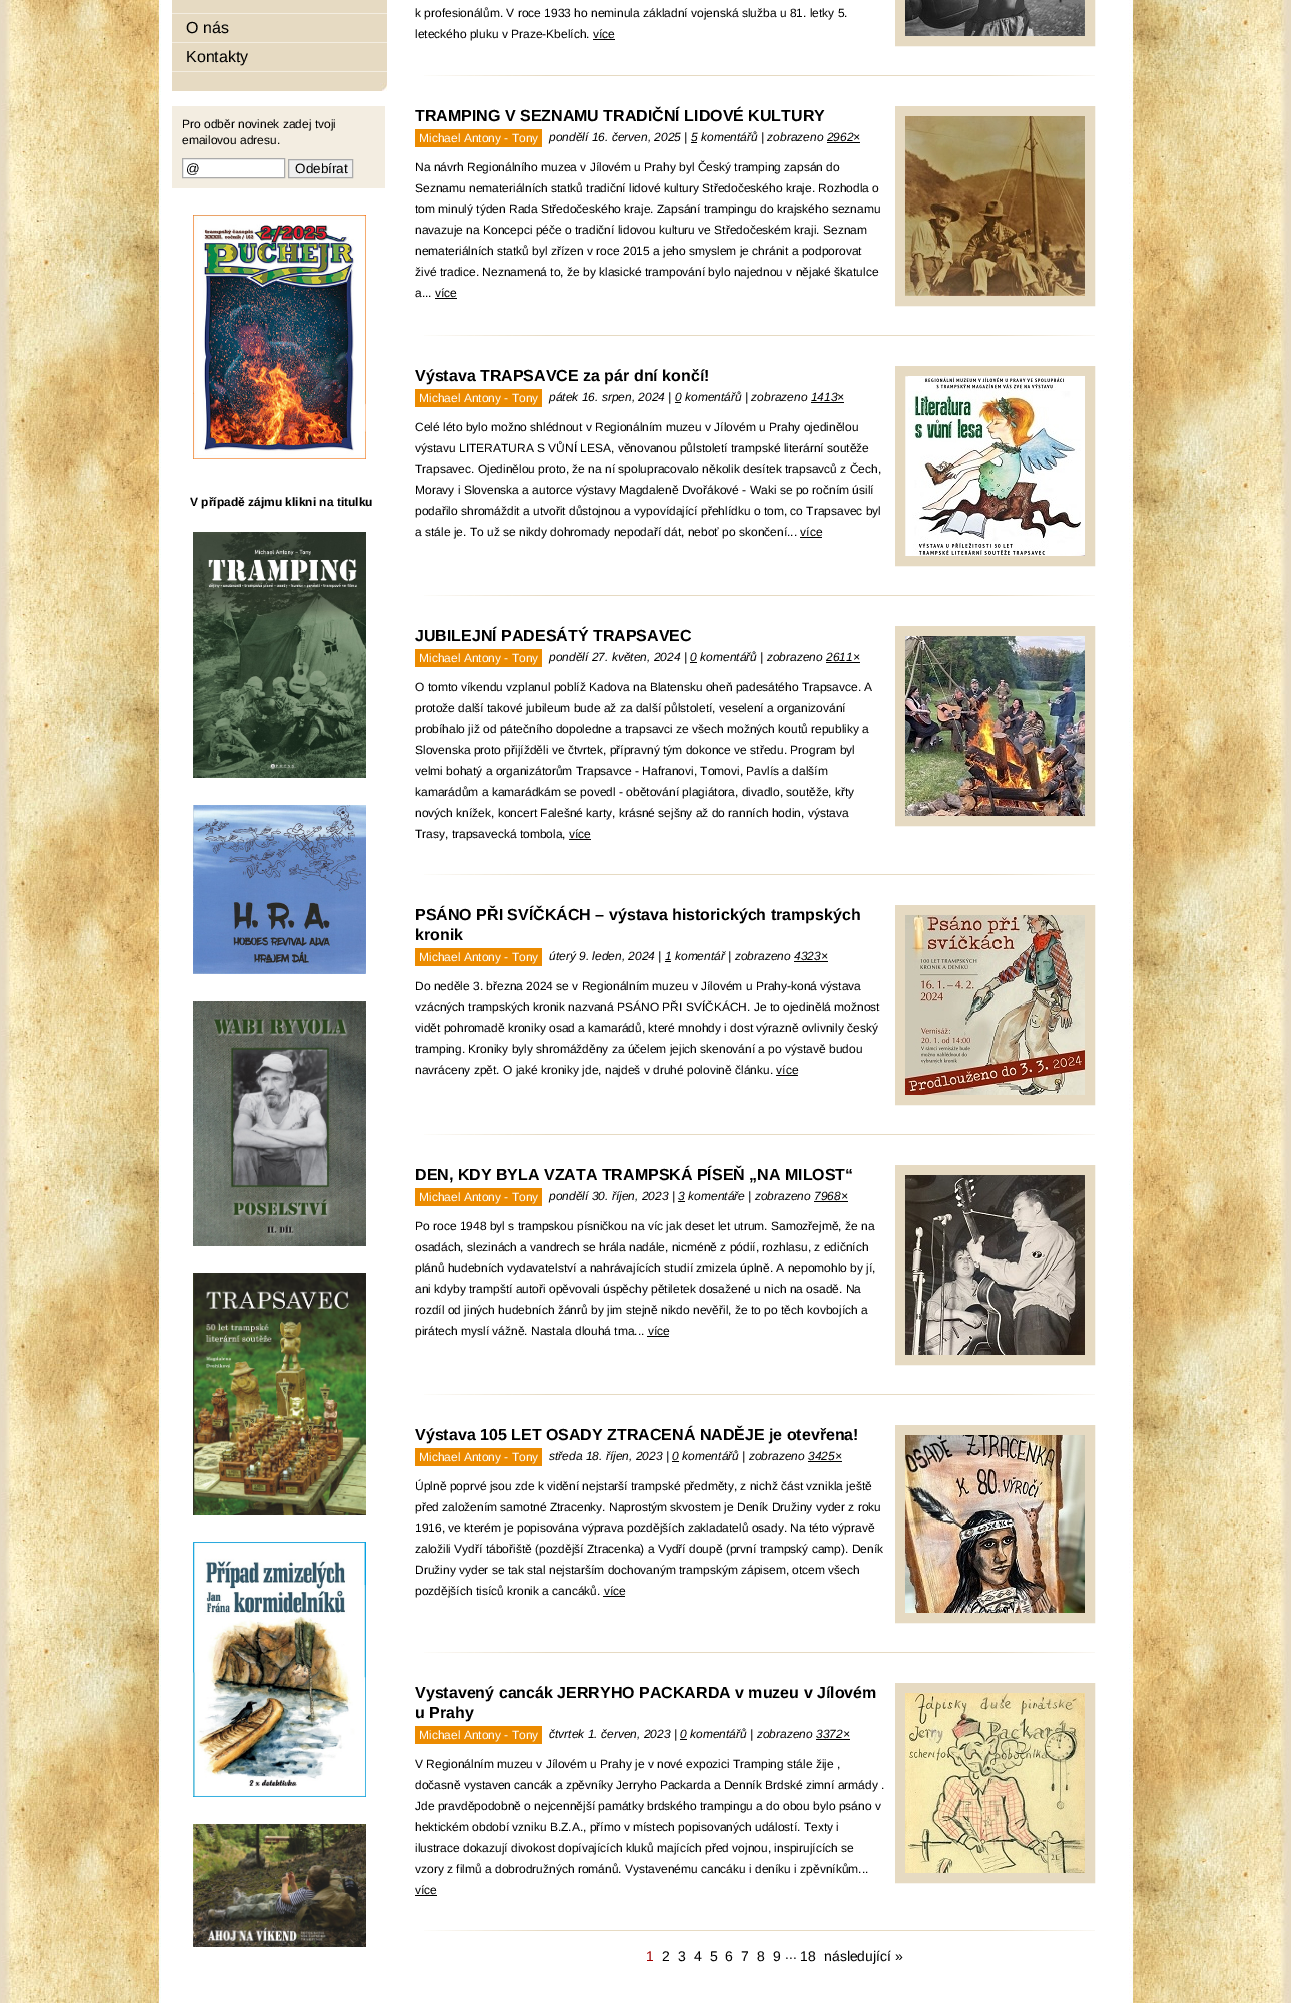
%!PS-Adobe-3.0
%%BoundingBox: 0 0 1291 2003
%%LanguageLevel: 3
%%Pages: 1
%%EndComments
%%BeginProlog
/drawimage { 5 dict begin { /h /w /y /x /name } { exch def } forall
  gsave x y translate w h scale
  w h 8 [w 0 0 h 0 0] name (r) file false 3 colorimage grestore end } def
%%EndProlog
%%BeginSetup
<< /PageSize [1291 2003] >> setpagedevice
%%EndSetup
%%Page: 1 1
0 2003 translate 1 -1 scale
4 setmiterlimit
0.902 0.855 0.761 setrgbcolor
0 0 1291 2003 rectfill
(images/1.raw) 1 0 1288 2003 drawimage
172 0 215 91 rectfill
0.953 0.929 0.882 setrgbcolor
172 13 215 1 rectfill
172 42 215 1 rectfill
172 71 215 1 rectfill
(images/2.raw) 380 83 7 8 drawimage
172 106 213 82 rectfill
1 setgray
newpath 182.5 158.5 moveto 284.5 158.5 lineto 284.5 177.5 lineto 182.5 177.5 lineto closepath gsave fill grestore
0.667 setgray
stroke
0.937 setgray
newpath 288.5 159.5 moveto 352.5 159.5 lineto 352.5 177.5 lineto 288.5 177.5 lineto closepath gsave fill grestore
0.667 setgray
stroke
(images/3.raw) 193 215 173 244 drawimage
(images/4.raw) 193 532 173 246 drawimage
(images/5.raw) 193 805 173 169 drawimage
(images/6.raw) 193 1001 173 245 drawimage
(images/7.raw) 193 1273 173 242 drawimage
(images/8.raw) 193 1542 173 255 drawimage
(images/9.raw) 193 1824 173 123 drawimage
(images/10.raw) 424 75 671 1 drawimage
0 setgray
593 39 22 1 rectfill
0.902 0.855 0.761 setrgbcolor
10 setlinewidth
900 -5 190 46 rectstroke
(images/11.raw) 905 0 180 36 drawimage
(images/10.raw) 424 335 671 1 drawimage
0.925 0.545 0 setrgbcolor
415 129 127 18 rectfill
0 setgray
691 142 6 1 rectfill
827 142 33 1 rectfill
435 298 22 1 rectfill
0.902 0.855 0.761 setrgbcolor
900 111 190 190 rectstroke
(images/12.raw) 905 116 180 180 drawimage
(images/10.raw) 424 595 671 1 drawimage
0.925 0.545 0 setrgbcolor
415 389 127 18 rectfill
0 setgray
675 402 6 1 rectfill
811 402 33 1 rectfill
800 537 22 1 rectfill
0.902 0.855 0.761 setrgbcolor
900 371 190 190 rectstroke
(images/13.raw) 908 376 177 180 drawimage
(images/10.raw) 424 874 671 1 drawimage
0.925 0.545 0 setrgbcolor
415 649 127 18 rectfill
0 setgray
690 662 7 1 rectfill
826 662 34 1 rectfill
569 839 22 1 rectfill
0.902 0.855 0.761 setrgbcolor
900 631 190 190 rectstroke
(images/14.raw) 905 636 180 180 drawimage
(images/10.raw) 424 1134 671 1 drawimage
0.925 0.545 0 setrgbcolor
415 948 127 18 rectfill
0 setgray
665 961 6 1 rectfill
794 961 34 1 rectfill
776 1075 22 1 rectfill
0.902 0.855 0.761 setrgbcolor
900 910 190 190 rectstroke
(images/15.raw) 905 915 180 180 drawimage
(images/10.raw) 424 1394 671 1 drawimage
0.925 0.545 0 setrgbcolor
415 1188 127 18 rectfill
0 setgray
678 1201 7 1 rectfill
814 1201 34 1 rectfill
647 1336 22 1 rectfill
0.902 0.855 0.761 setrgbcolor
900 1170 190 190 rectstroke
(images/16.raw) 905 1175 180 180 drawimage
(images/10.raw) 424 1652 671 1 drawimage
0.925 0.545 0 setrgbcolor
415 1448 127 18 rectfill
0 setgray
672 1461 7 1 rectfill
808 1461 34 1 rectfill
603 1596 22 1 rectfill
0.902 0.855 0.761 setrgbcolor
900 1430 190 188 rectstroke
(images/17.raw) 905 1435 180 178 drawimage
(images/10.raw) 424 1930 671 1 drawimage
0.925 0.545 0 setrgbcolor
415 1726 127 18 rectfill
0 setgray
680 1739 7 1 rectfill
816 1739 34 1 rectfill
415 1895 22 1 rectfill
0.902 0.855 0.761 setrgbcolor
900 1688 190 190 rectstroke
(images/18.raw) 905 1693 180 180 drawimage
/LiberationSans-Regular [16 0 0 -16 0 0] selectfont
0 setgray
186 33 moveto (O nás) show
186 62 moveto (Kontakty) show
/LiberationSans-Regular [12 0 0 -12 0 0] selectfont
182 128 moveto (Pro odběr novinek zadej tvoji) show
182 144 moveto (emailovou adresu.) show
/LiberationSans-Regular [13.5 0 0 -13.5 0 0] selectfont
186 173 moveto (@) show
295 173 moveto (Odebírat) show
/LiberationSans-Bold [12 0 0 -12 0 0] selectfont
190 506 moveto (V případě zájmu klikni na titulku) show
/LiberationSans-Regular [12 0 0 -12 0 0] selectfont
415 17 moveto (k profesionálům. V roce 1933 ho neminula základní vojenská služba u 81. letky 5.) show
415 38 moveto (leteckého pluku v Praze-Kbelích. více) show
/LiberationSans-Bold [16 0 0 -16 0 0] selectfont
415 121 moveto (TRAMPING V SEZNAMU TRADIČNÍ LIDOVÉ KULTURY) show
/LiberationSans-Regular [12 0 0 -12 0 0] selectfont
1 setgray
419 142 moveto (Michael Antony - Tony) show
/LiberationSans-Italic [12 0 0 -12 0 0] selectfont
0 setgray
549 141 moveto (pondělí 16. červen, 2025 | 5 komentářů | zobrazeno 2962×) show
/LiberationSans-Regular [12 0 0 -12 0 0] selectfont
415 171 moveto (Na návrh Regionálního muzea v Jílovém u Prahy byl Český tramping zapsán do) show
415 192 moveto (Seznamu nemateriálních statků tradiční lidové kultury Středočeského kraje. Rozhodla o) show
415 213 moveto (tom minulý týden Rada Středočeského kraje. Zapsání trampingu do krajského seznamu) show
415 234 moveto (navazuje na Koncepci péče o tradiční lidovou kulturu ve Středočeském kraji. Seznam) show
415 255 moveto (nemateriálních statků byl zřízen v roce 2015 a jeho smyslem je chránit a podporovat) show
415 276 moveto (živé tradice. Neznamená to, že by klasické trampování bylo najednou v nějaké škatulce) show
415 297 moveto (a... více) show
/LiberationSans-Bold [16 0 0 -16 0 0] selectfont
415 381 moveto (Výstava TRAPSAVCE za pár dní končí!) show
/LiberationSans-Regular [12 0 0 -12 0 0] selectfont
1 setgray
419 402 moveto (Michael Antony - Tony) show
/LiberationSans-Italic [12 0 0 -12 0 0] selectfont
0 setgray
549 401 moveto (pátek 16. srpen, 2024 | 0 komentářů | zobrazeno 1413×) show
/LiberationSans-Regular [12 0 0 -12 0 0] selectfont
415 431 moveto (Celé léto bylo možno shlédnout v Regionálním muzeu v Jílovém u Prahy ojedinělou) show
415 452 moveto (výstavu LITERATURA S VŮNÍ LESA, věnovanou půlstoletí trampské literární soutěže) show
415 473 moveto (Trapsavec. Ojedinělou proto, že na ní spolupracovalo několik desítek trapsavců z Čech,) show
415 494 moveto (Moravy i Slovenska a autorce výstavy Magdaleně Dvořákové - Waki se po ročním úsilí) show
415 515 moveto (podařilo shromáždit a utvořit důstojnou a vypovídající přehlídku o tom, co Trapsavec byl) show
415 536 moveto (a stále je. To už se nikdy dohromady nepodaří dát, neboť po skončení... více) show
/LiberationSans-Bold [16 0 0 -16 0 0] selectfont
415 641 moveto (JUBILEJNÍ PADESÁTÝ TRAPSAVEC) show
/LiberationSans-Regular [12 0 0 -12 0 0] selectfont
1 setgray
419 662 moveto (Michael Antony - Tony) show
/LiberationSans-Italic [12 0 0 -12 0 0] selectfont
0 setgray
549 661 moveto (pondělí 27. květen, 2024 | 0 komentářů | zobrazeno 2611×) show
/LiberationSans-Regular [12 0 0 -12 0 0] selectfont
415 691 moveto (O tomto víkendu vzplanul poblíž Kadova na Blatensku oheň padesátého Trapsavce. A) show
415 712 moveto (protože další takové jubileum bude až za další půlstoletí, veselení a organizování) show
415 733 moveto (probíhalo již od pátečního dopoledne a trapsavci ze všech možných koutů republiky a) show
415 754 moveto (Slovenska proto přijížděli ve čtvrtek, přípravný tým dokonce ve středu. Program byl) show
415 775 moveto (velmi bohatý a organizátorům Trapsavce - Hafranovi, Tomovi, Pavlís a dalším) show
415 796 moveto (kamarádům a kamarádkám se povedl - obětování plagiátora, divadlo, soutěže, křty) show
415 817 moveto (nových knížek, koncert Falešné karty, krásné sejšny až do ranních hodin, výstava) show
415 838 moveto (Trasy, trapsavecká tombola, více) show
/LiberationSans-Bold [16 0 0 -16 0 0] selectfont
415 920 moveto (PSÁNO PŘI SVÍČKÁCH – výstava historických trampských) show
415 940 moveto (kronik) show
/LiberationSans-Regular [12 0 0 -12 0 0] selectfont
1 setgray
419 961 moveto (Michael Antony - Tony) show
/LiberationSans-Italic [12 0 0 -12 0 0] selectfont
0 setgray
549 960 moveto (úterý 9. leden, 2024 | 1 komentář | zobrazeno 4323×) show
/LiberationSans-Regular [12 0 0 -12 0 0] selectfont
415 990 moveto (Do neděle 3. března 2024 se v Regionálním muzeu v Jílovém u Prahy-koná výstava) show
415 1011 moveto (vzácných trampských kronik nazvaná PSÁNO PŘI SVÍČKÁCH. Je to ojedinělá možnost) show
415 1032 moveto (vidět pohromadě kroniky osad a kamarádů, které mnohdy i dost výrazně ovlivnily český) show
415 1053 moveto (tramping. Kroniky byly shromážděny za účelem jejich skenování a po výstavě budou) show
415 1074 moveto (navráceny zpět. O jaké kroniky jde, najdeš v druhé polovině článku. více) show
/LiberationSans-Bold [16 0 0 -16 0 0] selectfont
415 1180 moveto (DEN, KDY BYLA VZATA TRAMPSKÁ PÍSEŇ „NA MILOST“) show
/LiberationSans-Regular [12 0 0 -12 0 0] selectfont
1 setgray
419 1201 moveto (Michael Antony - Tony) show
/LiberationSans-Italic [12 0 0 -12 0 0] selectfont
0 setgray
549 1200 moveto (pondělí 30. říjen, 2023 | 3 komentáře | zobrazeno 7968×) show
/LiberationSans-Regular [12 0 0 -12 0 0] selectfont
415 1230 moveto (Po roce 1948 byl s trampskou písničkou na víc jak deset let utrum. Samozřejmě, že na) show
415 1251 moveto (osadách, slezinách a vandrech se hrála nadále, nicméně z pódií, rozhlasu, z edičních) show
415 1272 moveto (plánů hudebních vydavatelství a nahrávajících studií zmizela úplně. A nepomohlo by jí,) show
415 1293 moveto (ani kdyby trampští autoři opěvovali úspěchy pětiletek dosažené u nich na osadě. Na) show
415 1314 moveto (rozdíl od jiných hudebních žánrů by jim stejně nikdo nevěřil, že to po těch kovbojích a) show
415 1335 moveto (pirátech myslí vážně. Nastala dlouhá tma... více) show
/LiberationSans-Bold [16 0 0 -16 0 0] selectfont
415 1440 moveto (Výstava 105 LET OSADY ZTRACENÁ NADĚJE je otevřena!) show
/LiberationSans-Regular [12 0 0 -12 0 0] selectfont
1 setgray
419 1461 moveto (Michael Antony - Tony) show
/LiberationSans-Italic [12 0 0 -12 0 0] selectfont
0 setgray
549 1460 moveto (středa 18. říjen, 2023 | 0 komentářů | zobrazeno 3425×) show
/LiberationSans-Regular [12 0 0 -12 0 0] selectfont
415 1490 moveto (Úplně poprvé jsou zde k vidění nejstarší trampské předměty, z nichž část vznikla ještě) show
415 1511 moveto (před založením samotné Ztracenky. Naprostým skvostem je Deník Družiny vyder z roku) show
415 1532 moveto (1916, ve kterém je popisována výprava pozdějších zakladatelů osady. Na této výpravě) show
415 1553 moveto (založili Vydří tábořiště \(pozdější Ztracenka\) a Vydří doupě \(první trampský camp\). Deník) show
415 1574 moveto (Družiny vyder se tak stal nejstarším dochovaným trampským zápisem, otcem všech) show
415 1595 moveto (pozdějších tisíců kronik a cancáků. více) show
/LiberationSans-Bold [16 0 0 -16 0 0] selectfont
415 1698 moveto (Vystavený cancák JERRYHO PACKARDA v muzeu v Jílovém) show
415 1718 moveto (u Prahy) show
/LiberationSans-Regular [12 0 0 -12 0 0] selectfont
1 setgray
419 1739 moveto (Michael Antony - Tony) show
/LiberationSans-Italic [12 0 0 -12 0 0] selectfont
0 setgray
549 1738 moveto (čtvrtek 1. červen, 2023 | 0 komentářů | zobrazeno 3372×) show
/LiberationSans-Regular [12 0 0 -12 0 0] selectfont
415 1768 moveto (V Regionálním muzeu v Jílovém u Prahy je v nové expozici Tramping stále žije ,) show
415 1789 moveto (dočasně vystaven cancák a zpěvníky Jerryho Packarda a Denník Brdské zimní armády .) show
415 1810 moveto (Jde pravděpodobně o nejcennější památky brdského trampingu a do obou bylo psáno v) show
415 1831 moveto (hektickém období vzniku B.Z.A., přímo v místech popisovaných událostí. Texty i) show
415 1852 moveto (ilustrace dokazují divokost dopívajících kluků majících před vojnou, inspirujících se) show
415 1873 moveto (vzory z filmů a dobrodružných románů. Vystavenému cancáku i deníku i zpěvníkům...) show
415 1894 moveto (více) show
/LiberationSans-Regular [14 0 0 -14 0 0] selectfont
0.627 0 0 setrgbcolor
646 1961 moveto (1) show
0 setgray
662 1961 moveto (2) show
678 1961 moveto (3) show
694 1961 moveto (4) show
710 1961 moveto (5) show
725 1961 moveto (6) show
741 1961 moveto (7) show
757 1961 moveto (8) show
773 1961 moveto (9) show
785 1959 moveto (...) show
800 1961 moveto (18) show
824 1961 moveto (následující ») show
showpage
%%EOF
